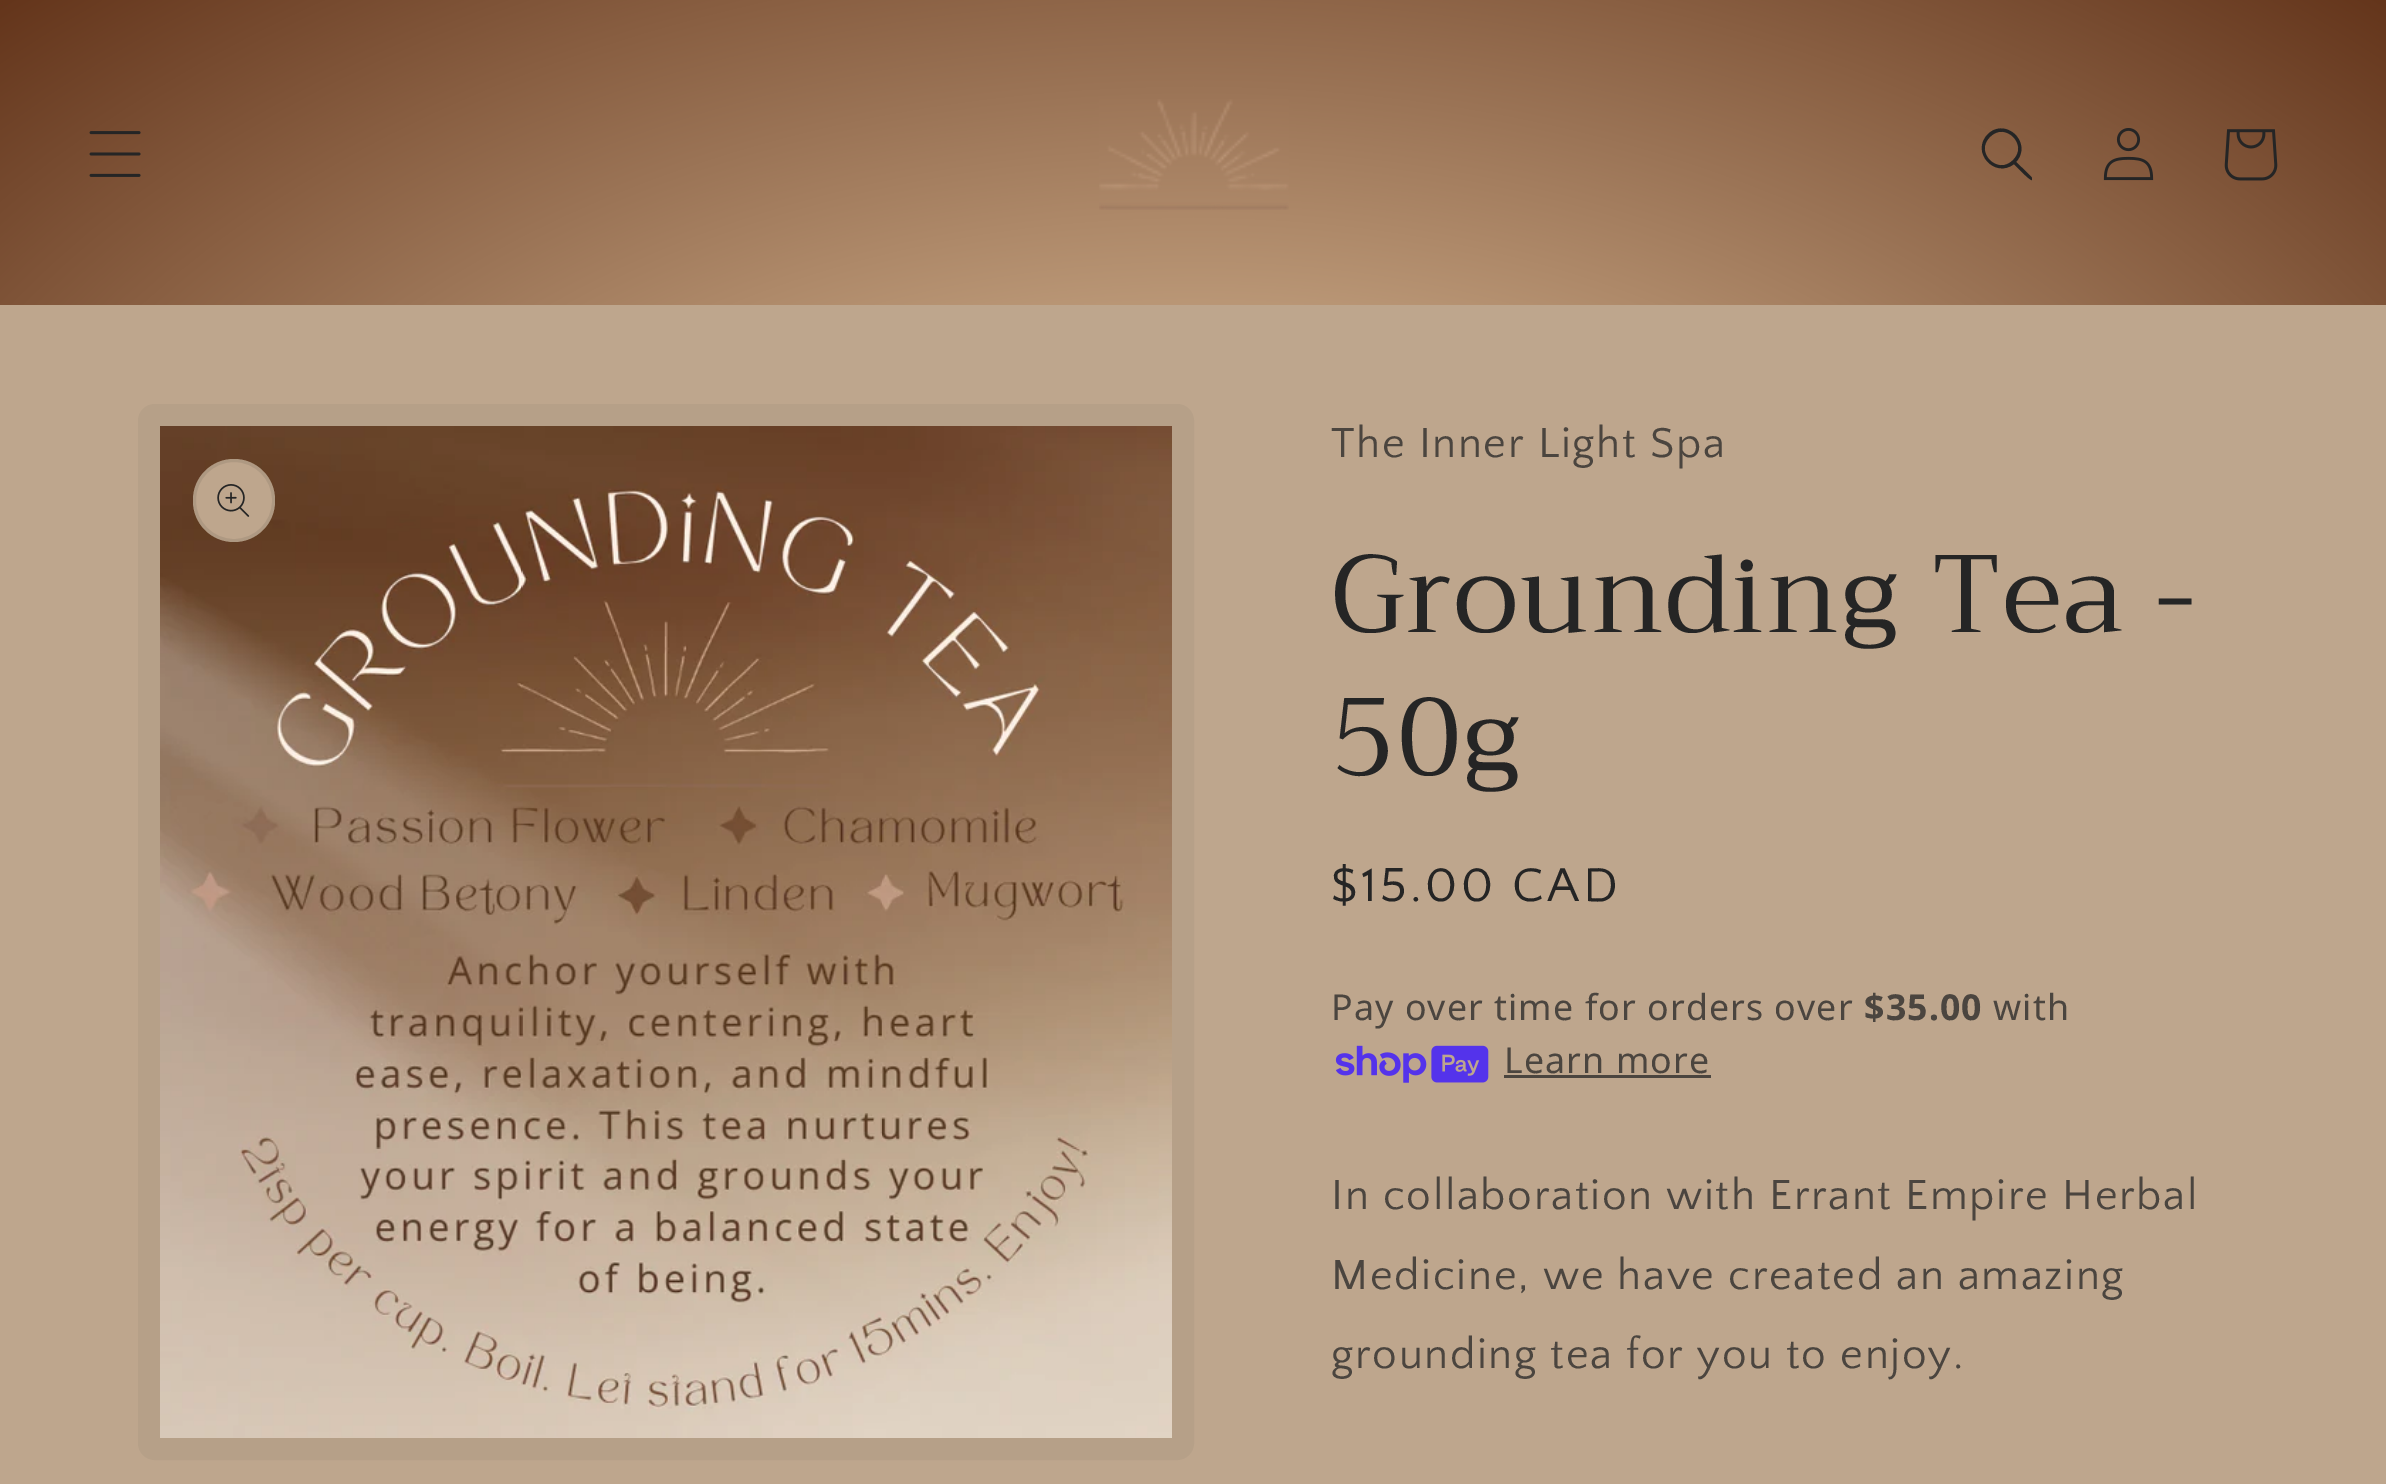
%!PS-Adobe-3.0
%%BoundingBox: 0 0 2386 1484
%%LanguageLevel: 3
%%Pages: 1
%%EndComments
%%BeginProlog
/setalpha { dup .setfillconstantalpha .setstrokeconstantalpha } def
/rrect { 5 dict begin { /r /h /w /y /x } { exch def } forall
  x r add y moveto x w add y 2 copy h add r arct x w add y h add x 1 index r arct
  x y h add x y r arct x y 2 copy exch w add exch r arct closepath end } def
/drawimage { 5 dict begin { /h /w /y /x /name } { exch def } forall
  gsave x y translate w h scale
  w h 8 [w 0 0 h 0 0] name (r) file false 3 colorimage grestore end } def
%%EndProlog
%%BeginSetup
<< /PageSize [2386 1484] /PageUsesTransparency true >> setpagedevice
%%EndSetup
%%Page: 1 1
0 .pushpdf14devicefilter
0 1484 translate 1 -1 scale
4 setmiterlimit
0.745 0.651 0.553 setrgbcolor
0 0 2386 1484 rectfill
gsave newpath 0 0 moveto 2386 0 lineto 2386 305 lineto 0 305 lineto closepath clip newpath 1194 743 translate 1688 1050 scale
<< /ShadingType 3 /ColorSpace /DeviceRGB /Coords [0 0 0 0 0 1] /Extend [true true] /Function << /FunctionType 3 /Domain [0 1] /Functions [<< /FunctionType 2 /Domain [0 1] /C0 [0.796 0.718 0.549] /C1 [0.796 0.718 0.549] /N 1 >> << /FunctionType 2 /Domain [0 1] /C0 [0.796 0.718 0.549] /C1 [0.82 0.694 0.561] /N 1 >> << /FunctionType 2 /Domain [0 1] /C0 [0.82 0.694 0.561] /C1 [0.392 0.208 0.106] /N 1 >>] /Bounds [0.2 0.26] /Encode [0 1 0 1 0 1] >> >> shfill grestore
(images/1.raw) 89 131 52 46 drawimage
(images/2.raw) 1099 99 190 111 drawimage
0.145 setgray
newpath 2013 160 moveto 1998 176 1974 152 1990 137 curveto 2005 121 2029 145 2013 160 curveto closepath 2014 164 moveto 1995 179 1970 152 1988 134 curveto 2006 117 2033 143 2016 162 curveto 2018 164 2032 177 2032 178 curveto 2032 180 lineto 2030 181 2016 166 2014 164 curveto closepath eofill
(images/3.raw) 2103 128 51 53 drawimage
(images/4.raw) 2224 129 54 52 drawimage
0.714 0.627 0.533 setrgbcolor
22 setlinewidth
149 415 1034 1034 6 rrect stroke
(images/5.raw) 160 426 1012 1012 drawimage
0.745 0.651 0.553 setrgbcolor
193 459 82 83 41 rrect fill
0.1 setalpha
0.145 setgray
3 setlinewidth
194.5 460.5 79 80 39.5 rrect stroke
1 setalpha
(images/6.raw) 217 484 33 33 drawimage
(images/7.raw) 1335 1045 154 38 drawimage
0.294 0.271 0.247 setrgbcolor
1504 1075 207 3 rectfill
/QuattrocentoSans-Regular [44 0 0 -44 0 0] selectfont
1331 457 moveto 1.65 0 (The Inner Light Spa) ashow
/Trirong-Regular [110 0 0 -110 0 0] selectfont
0.145 setgray
1331 632 moveto 1.65 0 (Grounding Tea -) ashow
1331 775 moveto 1.65 0 (50g) ashow
/QuattrocentoSans-Regular [49.5 0 0 -49.5 0 0] selectfont
1331 901 moveto 3.5 0 ($15.00 CAD) ashow
/NotoSans-Regular [35.75 0 0 -35.75 0 0] selectfont
0.294 0.271 0.247 setrgbcolor
1331 1020 moveto 1.1 0 (Pay over time for orders over) ashow
/NotoSans-Bold [35.75 0 0 -35.75 0 0] selectfont
1864 1020 moveto 1.1 0 ($35.00) ashow
/NotoSans-Regular [35.75 0 0 -35.75 0 0] selectfont
1993 1020 moveto 1.1 0 (with) ashow
1504 1073 moveto 1.1 0 (Learn more) ashow
/QuattrocentoSans-Regular [44 0 0 -44 0 0] selectfont
1331 1209 moveto 1.65 0 (In collaboration with Errant Empire Herbal) ashow
1331 1289 moveto 1.65 0 (Medicine, we have created an amazing) ashow
1331 1368 moveto 1.65 0 (grounding tea for you to enjoy.) ashow
.poppdf14devicefilter showpage
%%EOF
